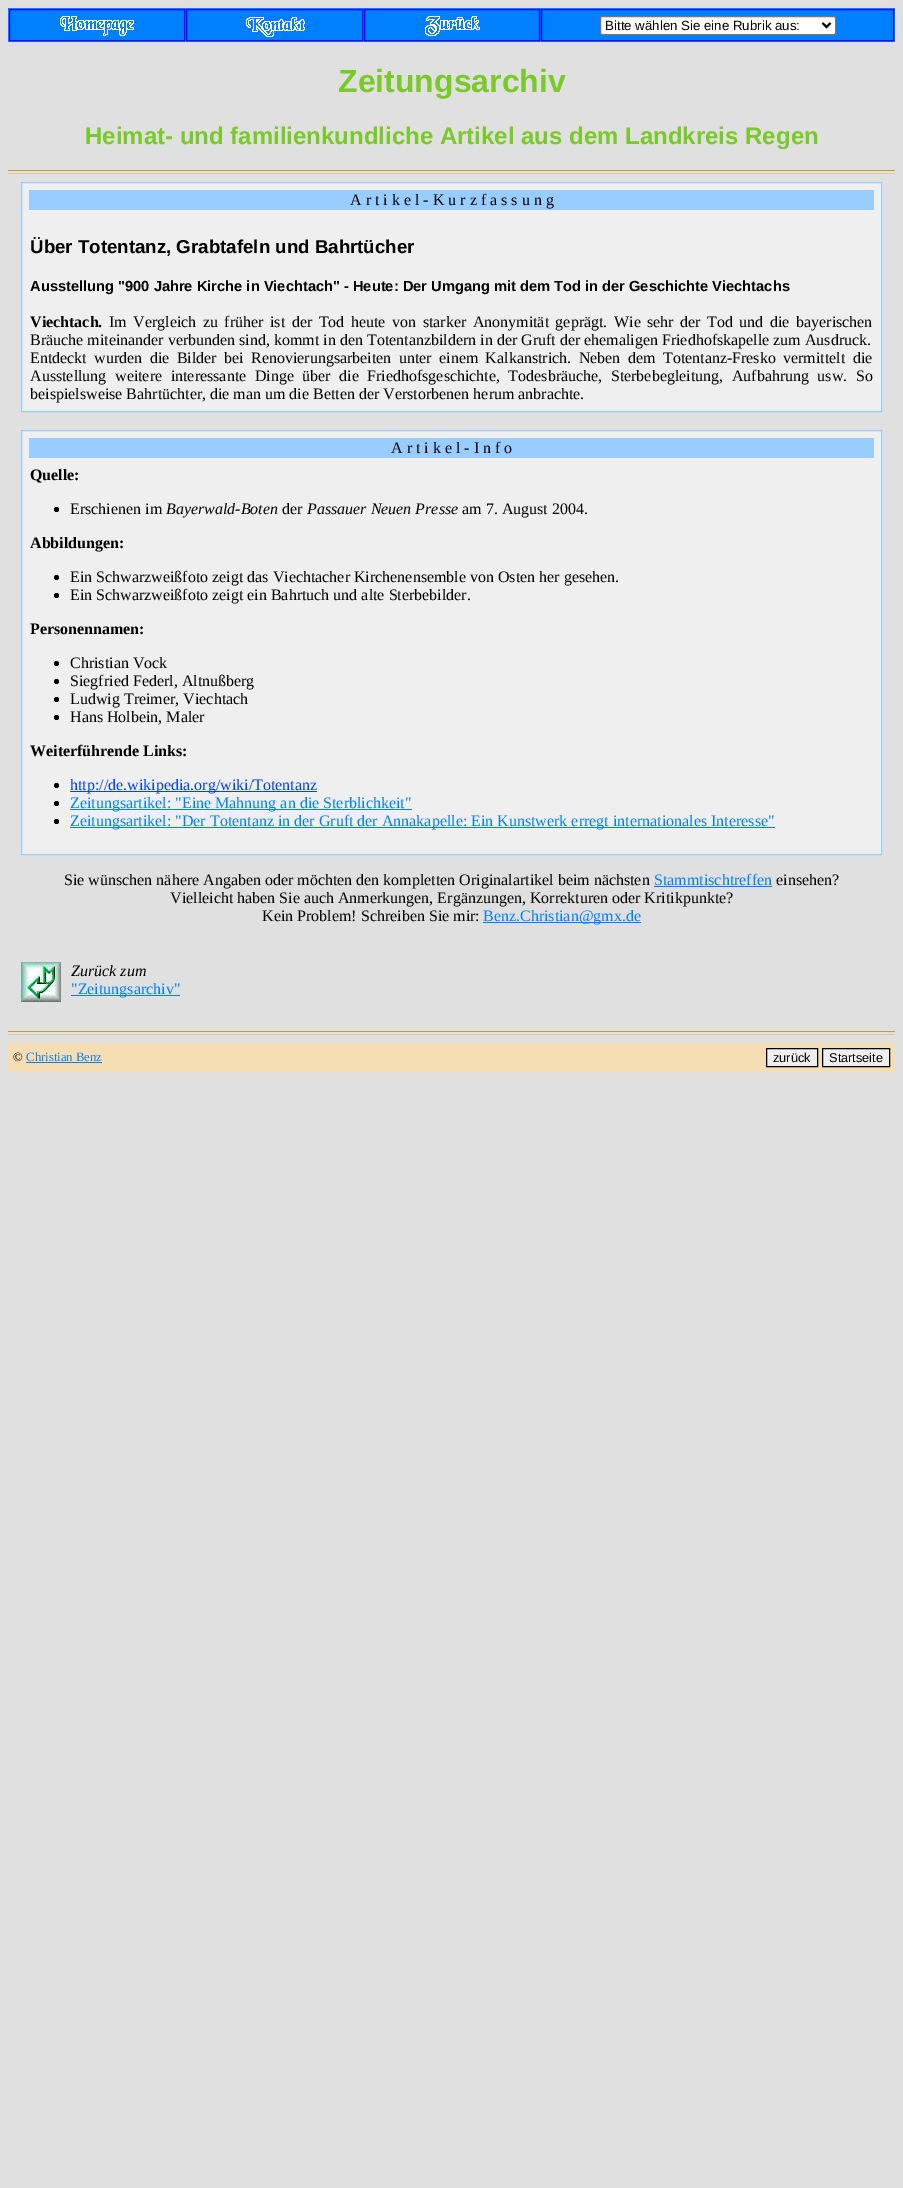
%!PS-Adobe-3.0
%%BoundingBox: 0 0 903 2188
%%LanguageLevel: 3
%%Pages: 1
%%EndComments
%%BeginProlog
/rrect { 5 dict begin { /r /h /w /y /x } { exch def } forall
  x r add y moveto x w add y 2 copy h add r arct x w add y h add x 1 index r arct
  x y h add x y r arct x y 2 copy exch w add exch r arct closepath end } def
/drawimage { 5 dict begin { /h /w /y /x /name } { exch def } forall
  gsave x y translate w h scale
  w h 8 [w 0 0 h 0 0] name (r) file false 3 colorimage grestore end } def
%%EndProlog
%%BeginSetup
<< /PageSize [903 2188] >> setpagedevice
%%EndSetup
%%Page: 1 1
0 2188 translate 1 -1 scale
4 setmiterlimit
0.878 setgray
0 0 903 2188 rectfill
0 0.502 1 setrgbcolor
8 8 887 34 rectfill
0 0 1 setrgbcolor
9.5 9.5 175 31 rectstroke
(images/1.raw) 60 16 74 20 drawimage
186.5 9.5 176 31 rectstroke
(images/2.raw) 246 17 59 20 drawimage
364.5 9.5 175 31 rectstroke
(images/3.raw) 425 16 55 20 drawimage
541.5 9.5 352 31 rectstroke
1 setgray
600.5 16.5 235 18 1.5 rrect gsave fill grestore
0.463 setgray
stroke
0 setgray
2 setlinewidth
newpath 822.5 23 moveto 826.5 27 lineto 830.5 23 lineto stroke
0.753 0.612 0.22 setrgbcolor
8 170 887 1 rectfill
0.878 0.8 0.596 setrgbcolor
8 173 887 1 rectfill
0.937 setgray
newpath 21.5 182.5 moveto 881.5 182.5 lineto 881.5 411.5 lineto 21.5 411.5 lineto closepath gsave fill grestore
0.6 0.8 1 setrgbcolor
1 setlinewidth
stroke
29 190 845 20 rectfill
0.937 setgray
newpath 21.5 430.5 moveto 881.5 430.5 lineto 881.5 854.5 lineto 21.5 854.5 lineto closepath gsave fill grestore
0.6 0.8 1 setrgbcolor
stroke
29 438 845 20 rectfill
0 setgray
newpath 56.5 509.5 2.5 0 360 arc closepath fill
newpath 56.5 577.5 2.5 0 360 arc closepath fill
newpath 56.5 595.5 2.5 0 360 arc closepath fill
newpath 56.5 663.5 2.5 0 360 arc closepath fill
newpath 56.5 681.5 2.5 0 360 arc closepath fill
newpath 56.5 699.5 2.5 0 360 arc closepath fill
newpath 56.5 717.5 2.5 0 360 arc closepath fill
newpath 56.5 785.5 2.5 0 360 arc closepath fill
0 0.251 1 setrgbcolor
70 791 247 1 rectfill
0 setgray
newpath 56.5 803.5 2.5 0 360 arc closepath fill
0 0.502 1 setrgbcolor
70 809 342 1 rectfill
0 setgray
newpath 56.5 821.5 2.5 0 360 arc closepath fill
0 0.502 1 setrgbcolor
70 827 705 1 rectfill
654 886 118 1 rectfill
483 922 158 1 rectfill
(images/4.raw) 21 962 40 40 drawimage
71 995 109 1 rectfill
0.753 0.612 0.22 setrgbcolor
8 1031 887 1 rectfill
0.878 0.8 0.596 setrgbcolor
8 1034 887 1 rectfill
0.961 0.871 0.702 setrgbcolor
8 1043 887 29 rectfill
0 0.502 1 setrgbcolor
26 1062 76 1 rectfill
0.937 setgray
newpath 766.5 1048.5 moveto 817.5 1048.5 lineto 817.5 1066.5 lineto 766.5 1066.5 lineto closepath gsave fill grestore
0 setgray
stroke
0.937 setgray
newpath 822.5 1048.5 moveto 889.5 1048.5 lineto 889.5 1066.5 lineto 822.5 1066.5 lineto closepath gsave fill grestore
0 setgray
stroke
/LiberationSans-Regular [13.3 0 0 -13.3 0 0] selectfont
605 30 moveto (Bitte wählen Sie eine Rubrik aus:) show
/LiberationSans-Bold [32 0 0 -32 0 0] selectfont
0.475 0.788 0.161 setrgbcolor
338 92 moveto (Zeitungsarchiv) show
/LiberationSans-Bold [24 0 0 -24 0 0] selectfont
85 144 moveto (Heimat- und familienkundliche Artikel aus dem Landkreis Regen) show
/LiberationSerif-Regular [16 0 0 -16 0 0] selectfont
0 setgray
350 205 moveto (A r t i k e l - K u r z f a s s u n g) show
/LiberationSans-Bold [18.7 0 0 -18.7 0 0] selectfont
30 253 moveto (Über Totentanz, Grabtafeln und Bahrtücher) show
/LiberationSans-Bold [14.67 0 0 -14.67 0 0] selectfont
30 291 moveto (Ausstellung "900 Jahre Kirche in Viechtach" - Heute: Der Umgang mit dem Tod in der Geschichte Viechtachs) show
/LiberationSerif-Bold [16 0 0 -16 0 0] selectfont
30 327 moveto (Viechtach.) show
/LiberationSerif-Regular [16 0 0 -16 0 0] selectfont
109 327 moveto 2.5 0 32 (Im Vergleich zu früher ist der Tod heute von starker Anonymität geprägt. Wie sehr der Tod und die bayerischen) widthshow
30 345 moveto (Bräuche miteinander verbunden sind, kommt in den Totentanzbildern in der Gruft der ehemaligen Friedhofskapelle zum Ausdruck.) show
30 363 moveto 3.4 0 32 (Entdeckt wurden die Bilder bei Renovierungsarbeiten unter einem Kalkanstrich. Neben dem Totentanz-Fresko vermittelt die) widthshow
30 381 moveto 4.5 0 32 (Ausstellung weitere interessante Dinge über die Friedhofsgeschichte, Todesbräuche, Sterbebegleitung, Aufbahrung usw. So) widthshow
30 399 moveto (beispielsweise Bahrtüchter, die man um die Betten der Verstorbenen herum anbrachte.) show
391 453 moveto (A r t i k e l - I n f o) show
/LiberationSerif-Bold [16 0 0 -16 0 0] selectfont
30 480 moveto (Quelle:) show
/LiberationSerif-Regular [16 0 0 -16 0 0] selectfont
70 514 moveto (Erschienen im) show
/LiberationSerif-Italic [16 0 0 -16 0 0] selectfont
166 514 moveto (Bayerwald-Boten) show
/LiberationSerif-Regular [16 0 0 -16 0 0] selectfont
282 514 moveto (der) show
/LiberationSerif-Italic [16 0 0 -16 0 0] selectfont
307 514 moveto (Passauer Neuen Presse) show
/LiberationSerif-Regular [16 0 0 -16 0 0] selectfont
462 514 moveto (am 7. August 2004.) show
/LiberationSerif-Bold [16 0 0 -16 0 0] selectfont
30 548 moveto (Abbildungen:) show
/LiberationSerif-Regular [16 0 0 -16 0 0] selectfont
70 582 moveto (Ein Schwarzweißfoto zeigt das Viechtacher Kirchenensemble von Osten her gesehen.) show
70 600 moveto (Ein Schwarzweißfoto zeigt ein Bahrtuch und alte Sterbebilder.) show
/LiberationSerif-Bold [16 0 0 -16 0 0] selectfont
30 634 moveto (Personennamen:) show
/LiberationSerif-Regular [16 0 0 -16 0 0] selectfont
70 668 moveto (Christian Vock) show
70 686 moveto (Siegfried Federl, Altnußberg) show
70 704 moveto (Ludwig Treimer, Viechtach) show
70 722 moveto (Hans Holbein, Maler) show
/LiberationSerif-Bold [16 0 0 -16 0 0] selectfont
30 756 moveto (Weiterführende Links:) show
/LiberationSerif-Regular [16 0 0 -16 0 0] selectfont
0 0.251 1 setrgbcolor
70 790 moveto (http://de.wikipedia.org/wiki/Totentanz) show
0 0.502 1 setrgbcolor
70 808 moveto (Zeitungsartikel: "Eine Mahnung an die Sterblichkeit") show
70 826 moveto (Zeitungsartikel: "Der Totentanz in der Gruft der Annakapelle: Ein Kunstwerk erregt internationales Interesse") show
0 setgray
64 885 moveto (Sie wünschen nähere Angaben oder möchten den kompletten Originalartikel beim nächsten) show
0 0.502 1 setrgbcolor
654 885 moveto (Stammtischtreffen) show
0 setgray
776 885 moveto (einsehen?) show
170 903 moveto (Vielleicht haben Sie auch Anmerkungen, Ergänzungen, Korrekturen oder Kritikpunkte?) show
262 921 moveto (Kein Problem! Schreiben Sie mir:) show
0 0.502 1 setrgbcolor
483 921 moveto (Benz.Christian@gmx.de) show
/LiberationSerif-Italic [16 0 0 -16 0 0] selectfont
0 setgray
71 976 moveto (Zurück zum) show
/LiberationSerif-Regular [16 0 0 -16 0 0] selectfont
0 0.502 1 setrgbcolor
71 994 moveto ("Zeitungsarchiv") show
/LiberationSerif-Regular [12.75 0 0 -12.75 0 0] selectfont
0 setgray
13 1061 moveto (©) show
0 0.502 1 setrgbcolor
26 1061 moveto (Christian Benz) show
/LiberationSans-Regular [12.75 0 0 -12.75 0 0] selectfont
0 setgray
773 1062 moveto (zurück) show
829 1062 moveto (Startseite) show
showpage
%%EOF
